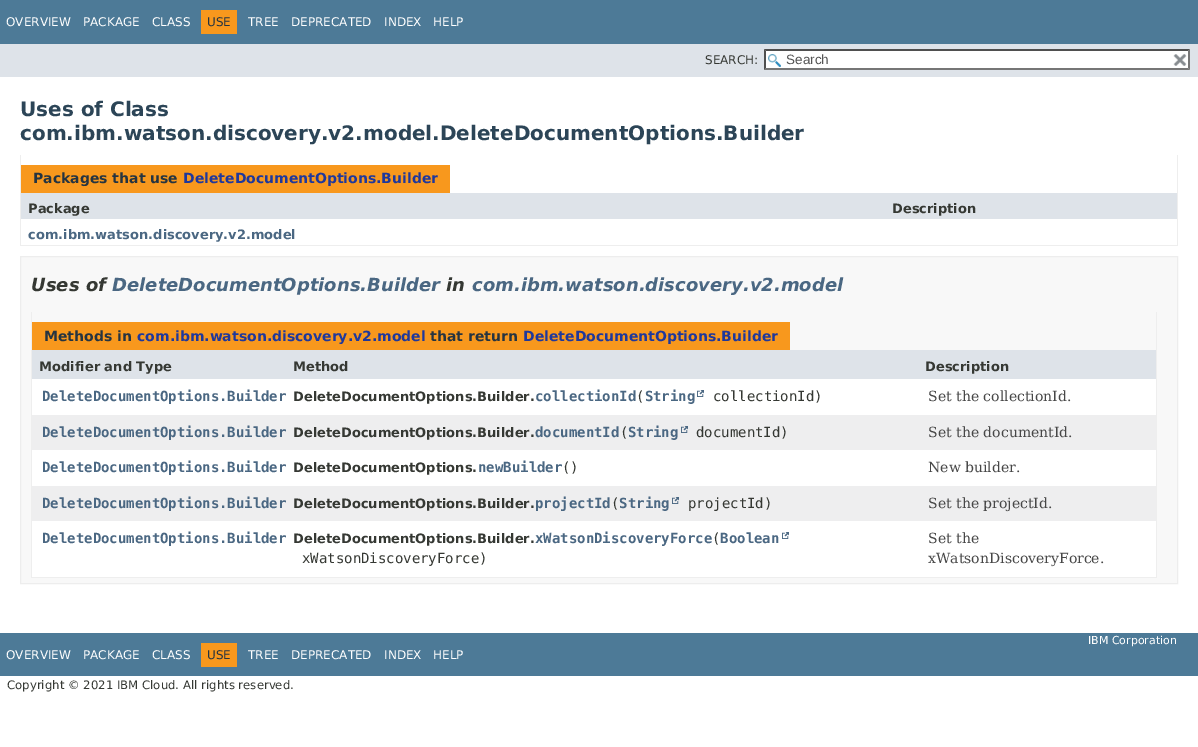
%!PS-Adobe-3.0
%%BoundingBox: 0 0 1198 747
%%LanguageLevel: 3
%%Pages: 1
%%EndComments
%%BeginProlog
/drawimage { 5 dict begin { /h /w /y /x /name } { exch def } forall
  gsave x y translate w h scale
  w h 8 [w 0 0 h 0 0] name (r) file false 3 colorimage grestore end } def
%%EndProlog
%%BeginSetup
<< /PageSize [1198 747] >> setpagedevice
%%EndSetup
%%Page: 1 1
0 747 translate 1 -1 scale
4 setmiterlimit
1 setgray
0 0 1198 747 rectfill
0.302 0.478 0.592 setrgbcolor
0 0 1198 44 rectfill
0.973 0.596 0.114 setrgbcolor
201 10 36 24 rectfill
0.871 0.89 0.914 setrgbcolor
0 44 1198 33 rectfill
1 setgray
764 49 426 21 rectfill
(images/1.raw) 768 54 13 13 drawimage
0.31 setgray
newpath 764 49 moveto 1190 49 lineto 1188 51 lineto 766 51 lineto closepath fill
0.463 setgray
newpath 1190 49 moveto 1190 70 lineto 1188 68 lineto 1188 51 lineto closepath fill
newpath 1190 70 moveto 764 70 lineto 766 68 lineto 1188 68 lineto closepath fill
0.31 setgray
newpath 764 70 moveto 764 49 lineto 766 51 lineto 766 68 lineto closepath fill
(images/2.raw) 1173 54 14 12 drawimage
0.933 setgray
1177 155 1 91 rectfill
20 245 1158 1 rectfill
20 155 1 91 rectfill
0.973 0.596 0.114 setrgbcolor
21 165 429 28 rectfill
0.871 0.89 0.914 setrgbcolor
21 193 1156 26 rectfill
0.973 setgray
newpath 20.5 256.5 moveto 1177.5 256.5 lineto 1177.5 583.5 lineto 20.5 583.5 lineto closepath gsave fill grestore
0.929 setgray
stroke
0.933 setgray
1156 312 1 266 rectfill
31 577 1126 1 rectfill
31 312 1 266 rectfill
0.973 0.596 0.114 setrgbcolor
32 322 758 28 rectfill
0.871 0.89 0.914 setrgbcolor
32 350 1124 29 rectfill
1 setgray
32 379 1124 36 rectfill
(images/3.raw) 697 390 7 7 drawimage
0.933 0.933 0.937 setrgbcolor
32 415 1124 35 rectfill
(images/4.raw) 681 426 7 7 drawimage
1 setgray
32 450 1124 36 rectfill
0.933 0.933 0.937 setrgbcolor
32 486 1124 35 rectfill
(images/4.raw) 672 497 7 7 drawimage
1 setgray
32 521 1124 56 rectfill
(images/3.raw) 782 532 7 7 drawimage
0.302 0.478 0.592 setrgbcolor
0 633 1198 43 rectfill
0.973 0.596 0.114 setrgbcolor
201 643 36 24 rectfill
/DejaVuSans-Regular [12 0 0 -12 0 0] selectfont
1 setgray
6 26 moveto (OVERVIEW) show
83 26 moveto (PACKAGE) show
152 26 moveto (CLASS) show
0.145 0.204 0.255 setrgbcolor
207 26 moveto (USE) show
1 setgray
248 26 moveto (TREE) show
291 26 moveto (DEPRECATED) show
384 26 moveto (INDEX) show
433 26 moveto (HELP) show
0.208 0.22 0.2 setrgbcolor
705 64 moveto (SEARCH:) show
/LiberationSans-Regular [13.5 0 0 -13.5 0 0] selectfont
0.329 setgray
786 64 moveto (Search) show
/DejaVuSans-Bold [20 0 0 -20 0 0] selectfont
0.173 0.271 0.341 setrgbcolor
20 116 moveto (Uses of Class) show
20 140 moveto (com.ibm.watson.discovery.v2.model.DeleteDocumentOptions.Builder) show
/DejaVuSans-Bold [14 0 0 -14 0 0] selectfont
0.145 0.204 0.255 setrgbcolor
33 183 moveto (Packages that use) show
0.122 0.22 0.612 setrgbcolor
183 183 moveto (DeleteDocumentOptions.Builder) show
/DejaVuSans-Bold [13 0 0 -13 0 0] selectfont
0.208 0.22 0.2 setrgbcolor
28 213 moveto (Package) show
892 213 moveto (Description) show
0.29 0.404 0.51 setrgbcolor
28 239 moveto (com.ibm.watson.discovery.v2.model) show
/DejaVuSans-BoldItalic [18 0 0 -18 0 0] selectfont
0.208 0.22 0.2 setrgbcolor
31 291 moveto (Uses of) show
0.29 0.404 0.51 setrgbcolor
112 291 moveto (DeleteDocumentOptions.Builder) show
0.208 0.22 0.2 setrgbcolor
446 291 moveto (in) show
0.29 0.404 0.51 setrgbcolor
472 291 moveto (com.ibm.watson.discovery.v2.model) show
/DejaVuSans-Bold [14 0 0 -14 0 0] selectfont
0.145 0.204 0.255 setrgbcolor
44 341 moveto (Methods in) show
0.122 0.22 0.612 setrgbcolor
137 341 moveto (com.ibm.watson.discovery.v2.model) show
0.145 0.204 0.255 setrgbcolor
430 341 moveto (that return) show
0.122 0.22 0.612 setrgbcolor
523 341 moveto (DeleteDocumentOptions.Builder) show
/DejaVuSans-Bold [13 0 0 -13 0 0] selectfont
0.208 0.22 0.2 setrgbcolor
39 371 moveto (Modifier and Type) show
293 371 moveto (Method) show
925 371 moveto (Description) show
/DejaVuSansMono-Bold [14 0 0 -14 0 0] selectfont
0.29 0.404 0.51 setrgbcolor
42 401 moveto (DeleteDocumentOptions.Builder) show
/DejaVuSans-Bold [13 0 0 -13 0 0] selectfont
0.208 0.22 0.2 setrgbcolor
293 401 moveto (DeleteDocumentOptions.Builder.) show
/DejaVuSansMono-Bold [14 0 0 -14 0 0] selectfont
0.29 0.404 0.51 setrgbcolor
535 401 moveto (collectionId String) show
/DejaVuSansMono-Regular [14 0 0 -14 0 0] selectfont
0.208 0.22 0.2 setrgbcolor
636 401 moveto (\() show
713 401 moveto (collectionId\)) show
/DejaVuSerif-Regular [14 0 0 -14 0 0] selectfont
0.278 setgray
928 401 moveto (Set the collectionId.) show
/DejaVuSansMono-Bold [14 0 0 -14 0 0] selectfont
0.29 0.404 0.51 setrgbcolor
42 437 moveto (DeleteDocumentOptions.Builder) show
/DejaVuSans-Bold [13 0 0 -13 0 0] selectfont
0.208 0.22 0.2 setrgbcolor
293 437 moveto (DeleteDocumentOptions.Builder.) show
/DejaVuSansMono-Bold [14 0 0 -14 0 0] selectfont
0.29 0.404 0.51 setrgbcolor
535 437 moveto (documentId String) show
/DejaVuSansMono-Regular [14 0 0 -14 0 0] selectfont
0.208 0.22 0.2 setrgbcolor
620 437 moveto (\() show
696 437 moveto (documentId\)) show
/DejaVuSerif-Regular [14 0 0 -14 0 0] selectfont
0.278 setgray
928 437 moveto (Set the documentId.) show
/DejaVuSansMono-Bold [14 0 0 -14 0 0] selectfont
0.29 0.404 0.51 setrgbcolor
42 472 moveto (DeleteDocumentOptions.Builder) show
/DejaVuSans-Bold [13 0 0 -13 0 0] selectfont
0.208 0.22 0.2 setrgbcolor
293 472 moveto (DeleteDocumentOptions.) show
/DejaVuSansMono-Bold [14 0 0 -14 0 0] selectfont
0.29 0.404 0.51 setrgbcolor
478 472 moveto (newBuilder) show
/DejaVuSansMono-Regular [14 0 0 -14 0 0] selectfont
0.208 0.22 0.2 setrgbcolor
562 472 moveto (\(\)) show
/DejaVuSerif-Regular [14 0 0 -14 0 0] selectfont
0.278 setgray
928 472 moveto (New builder.) show
/DejaVuSansMono-Bold [14 0 0 -14 0 0] selectfont
0.29 0.404 0.51 setrgbcolor
42 508 moveto (DeleteDocumentOptions.Builder) show
/DejaVuSans-Bold [13 0 0 -13 0 0] selectfont
0.208 0.22 0.2 setrgbcolor
293 508 moveto (DeleteDocumentOptions.Builder.) show
/DejaVuSansMono-Bold [14 0 0 -14 0 0] selectfont
0.29 0.404 0.51 setrgbcolor
535 508 moveto (projectId String) show
/DejaVuSansMono-Regular [14 0 0 -14 0 0] selectfont
0.208 0.22 0.2 setrgbcolor
611 508 moveto (\() show
688 508 moveto (projectId\)) show
/DejaVuSerif-Regular [14 0 0 -14 0 0] selectfont
0.278 setgray
928 508 moveto (Set the projectId.) show
/DejaVuSansMono-Bold [14 0 0 -14 0 0] selectfont
0.29 0.404 0.51 setrgbcolor
42 543 moveto (DeleteDocumentOptions.Builder) show
535 543 moveto (xWatsonDiscoveryForce Boolean) show
/DejaVuSansMono-Regular [14 0 0 -14 0 0] selectfont
0.208 0.22 0.2 setrgbcolor
712 543 moveto (\() show
302 563 moveto (xWatsonDiscoveryForce\)) show
/DejaVuSans-Bold [13 0 0 -13 0 0] selectfont
293 543 moveto (DeleteDocumentOptions.Builder.) show
/DejaVuSerif-Regular [14 0 0 -14 0 0] selectfont
0.278 setgray
928 543 moveto (Set the) show
928 563 moveto (xWatsonDiscoveryForce.) show
/DejaVuSans-Regular [11 0 0 -11 0 0] selectfont
1 setgray
1088 644 moveto (IBM Corporation) show
/DejaVuSans-Regular [12 0 0 -12 0 0] selectfont
6 659 moveto (OVERVIEW) show
83 659 moveto (PACKAGE) show
152 659 moveto (CLASS) show
0.145 0.204 0.255 setrgbcolor
207 659 moveto (USE) show
1 setgray
248 659 moveto (TREE) show
291 659 moveto (DEPRECATED) show
384 659 moveto (INDEX) show
433 659 moveto (HELP) show
/DejaVuSans-Regular [11.7 0 0 -11.7 0 0] selectfont
0.208 0.22 0.2 setrgbcolor
7 689 moveto (Copyright © 2021 IBM Cloud. All rights reserved.) show
showpage
%%EOF
